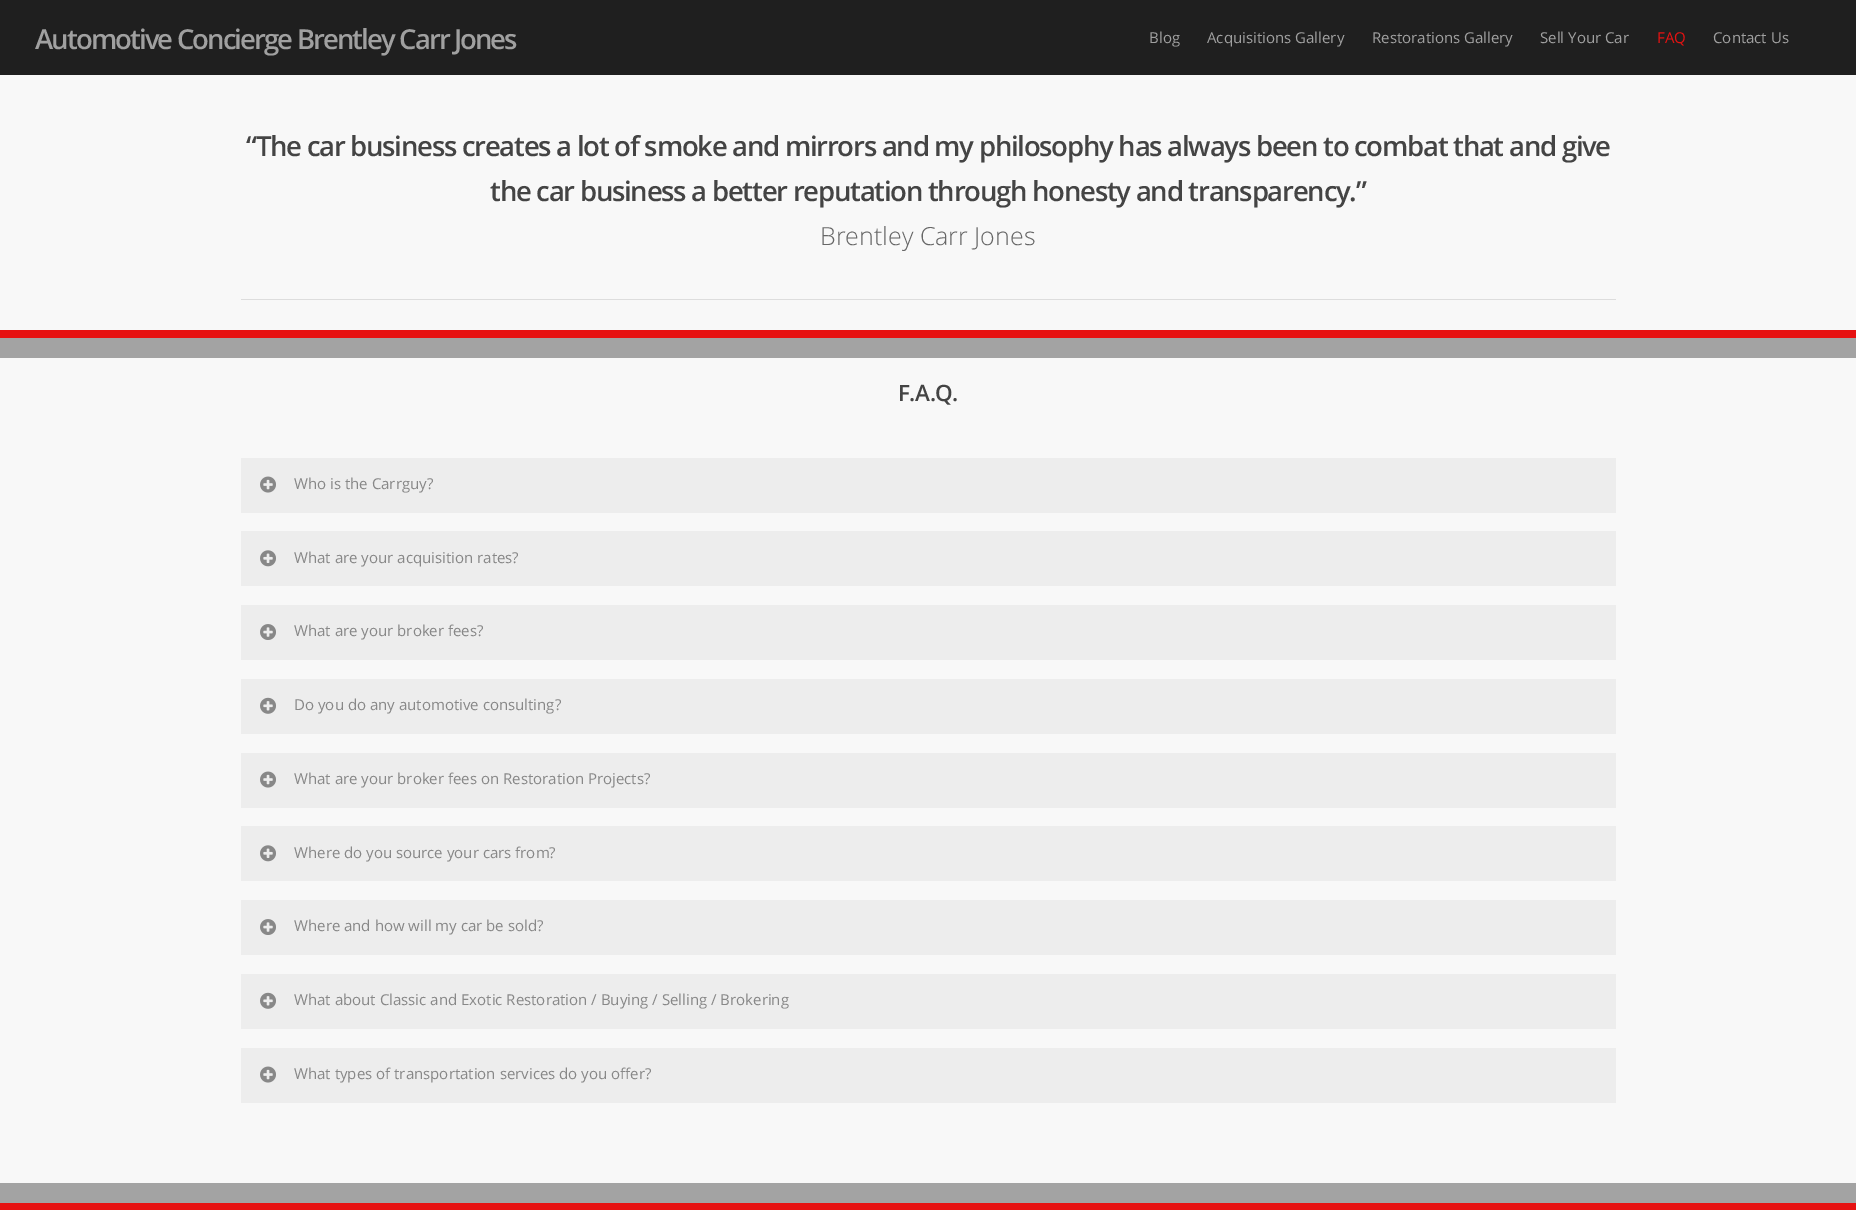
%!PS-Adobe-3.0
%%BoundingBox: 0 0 1856 1210
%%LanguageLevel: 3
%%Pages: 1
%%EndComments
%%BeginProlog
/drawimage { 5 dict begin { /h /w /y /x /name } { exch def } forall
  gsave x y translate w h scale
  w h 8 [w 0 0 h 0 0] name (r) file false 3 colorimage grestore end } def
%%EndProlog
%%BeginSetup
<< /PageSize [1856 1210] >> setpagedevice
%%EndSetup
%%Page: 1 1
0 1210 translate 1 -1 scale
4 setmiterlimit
0.973 setgray
0 0 1856 1210 rectfill
0.122 setgray
0 0 1856 75 rectfill
0.867 setgray
241 299 1375 1 rectfill
0.902 0.071 0.071 setrgbcolor
0 330 1856 8 rectfill
0.639 setgray
0 338 1856 20 rectfill
0.929 setgray
241 458 1375 55 rectfill
(images/1.raw) 260 476 16 17 drawimage
241 531 1375 55 rectfill
(images/2.raw) 260 550 16 17 drawimage
241 605 1375 55 rectfill
(images/3.raw) 260 624 16 16 drawimage
241 679 1375 55 rectfill
(images/4.raw) 260 697 16 17 drawimage
241 753 1375 55 rectfill
(images/1.raw) 260 771 16 17 drawimage
241 826 1375 55 rectfill
(images/2.raw) 260 845 16 17 drawimage
241 900 1375 55 rectfill
(images/3.raw) 260 919 16 16 drawimage
241 974 1375 55 rectfill
(images/4.raw) 260 992 16 17 drawimage
241 1048 1375 55 rectfill
(images/1.raw) 260 1066 16 17 drawimage
0.639 setgray
0 1183 1856 20 rectfill
0.902 0.071 0.071 setrgbcolor
0 1203 1856 7 rectfill
/OpenSans-SemiBold [27.5 0 0 -27.5 0 0] selectfont
0.627 setgray
35 49 moveto -1.9 0 (Automotive Concierge Brentley Carr Jones) ashow
/OpenSans-Regular [15 0 0 -15 0 0] selectfont
1149 43 moveto (Blog) show
1207 43 moveto (Acquisitions Gallery) show
1372 43 moveto (Restorations Gallery) show
1540 43 moveto (Sell Your Car) show
0.902 0.071 0.071 setrgbcolor
1657 43 moveto (FAQ) show
0.627 setgray
1713 43 moveto (Contact Us) show
/OpenSans-SemiBold [27.5 0 0 -27.5 0 0] selectfont
0.267 setgray
246 156 moveto -1.25 0 (“The car business creates a lot of smoke and mirrors and my philosophy has always been to combat that and give) ashow
490 201 moveto -1.25 0 (the car business a better reputation through honesty and transparency.”) ashow
/OpenSans-Light [25 0 0 -25 0 0] selectfont
0.404 setgray
820 245 moveto (Brentley Carr Jones) show
/OpenSans-SemiBold [22.5 0 0 -22.5 0 0] selectfont
0.267 setgray
898 401 moveto -0.5 0 (F.A.Q.) ashow
/OpenSans-Regular [15 0 0 -15 0 0] selectfont
0.533 setgray
294 489 moveto (Who is the Carrguy?) show
294 563 moveto (What are your acquisition rates?) show
294 636 moveto (What are your broker fees?) show
294 710 moveto (Do you do any automotive consulting?) show
294 784 moveto (What are your broker fees on Restoration Projects?) show
294 858 moveto (Where do you source your cars from?) show
294 931 moveto (Where and how will my car be sold?) show
294 1005 moveto (What about Classic and Exotic Restoration / Buying / Selling / Brokering) show
294 1079 moveto (What types of transportation services do you offer?) show
showpage
%%EOF
